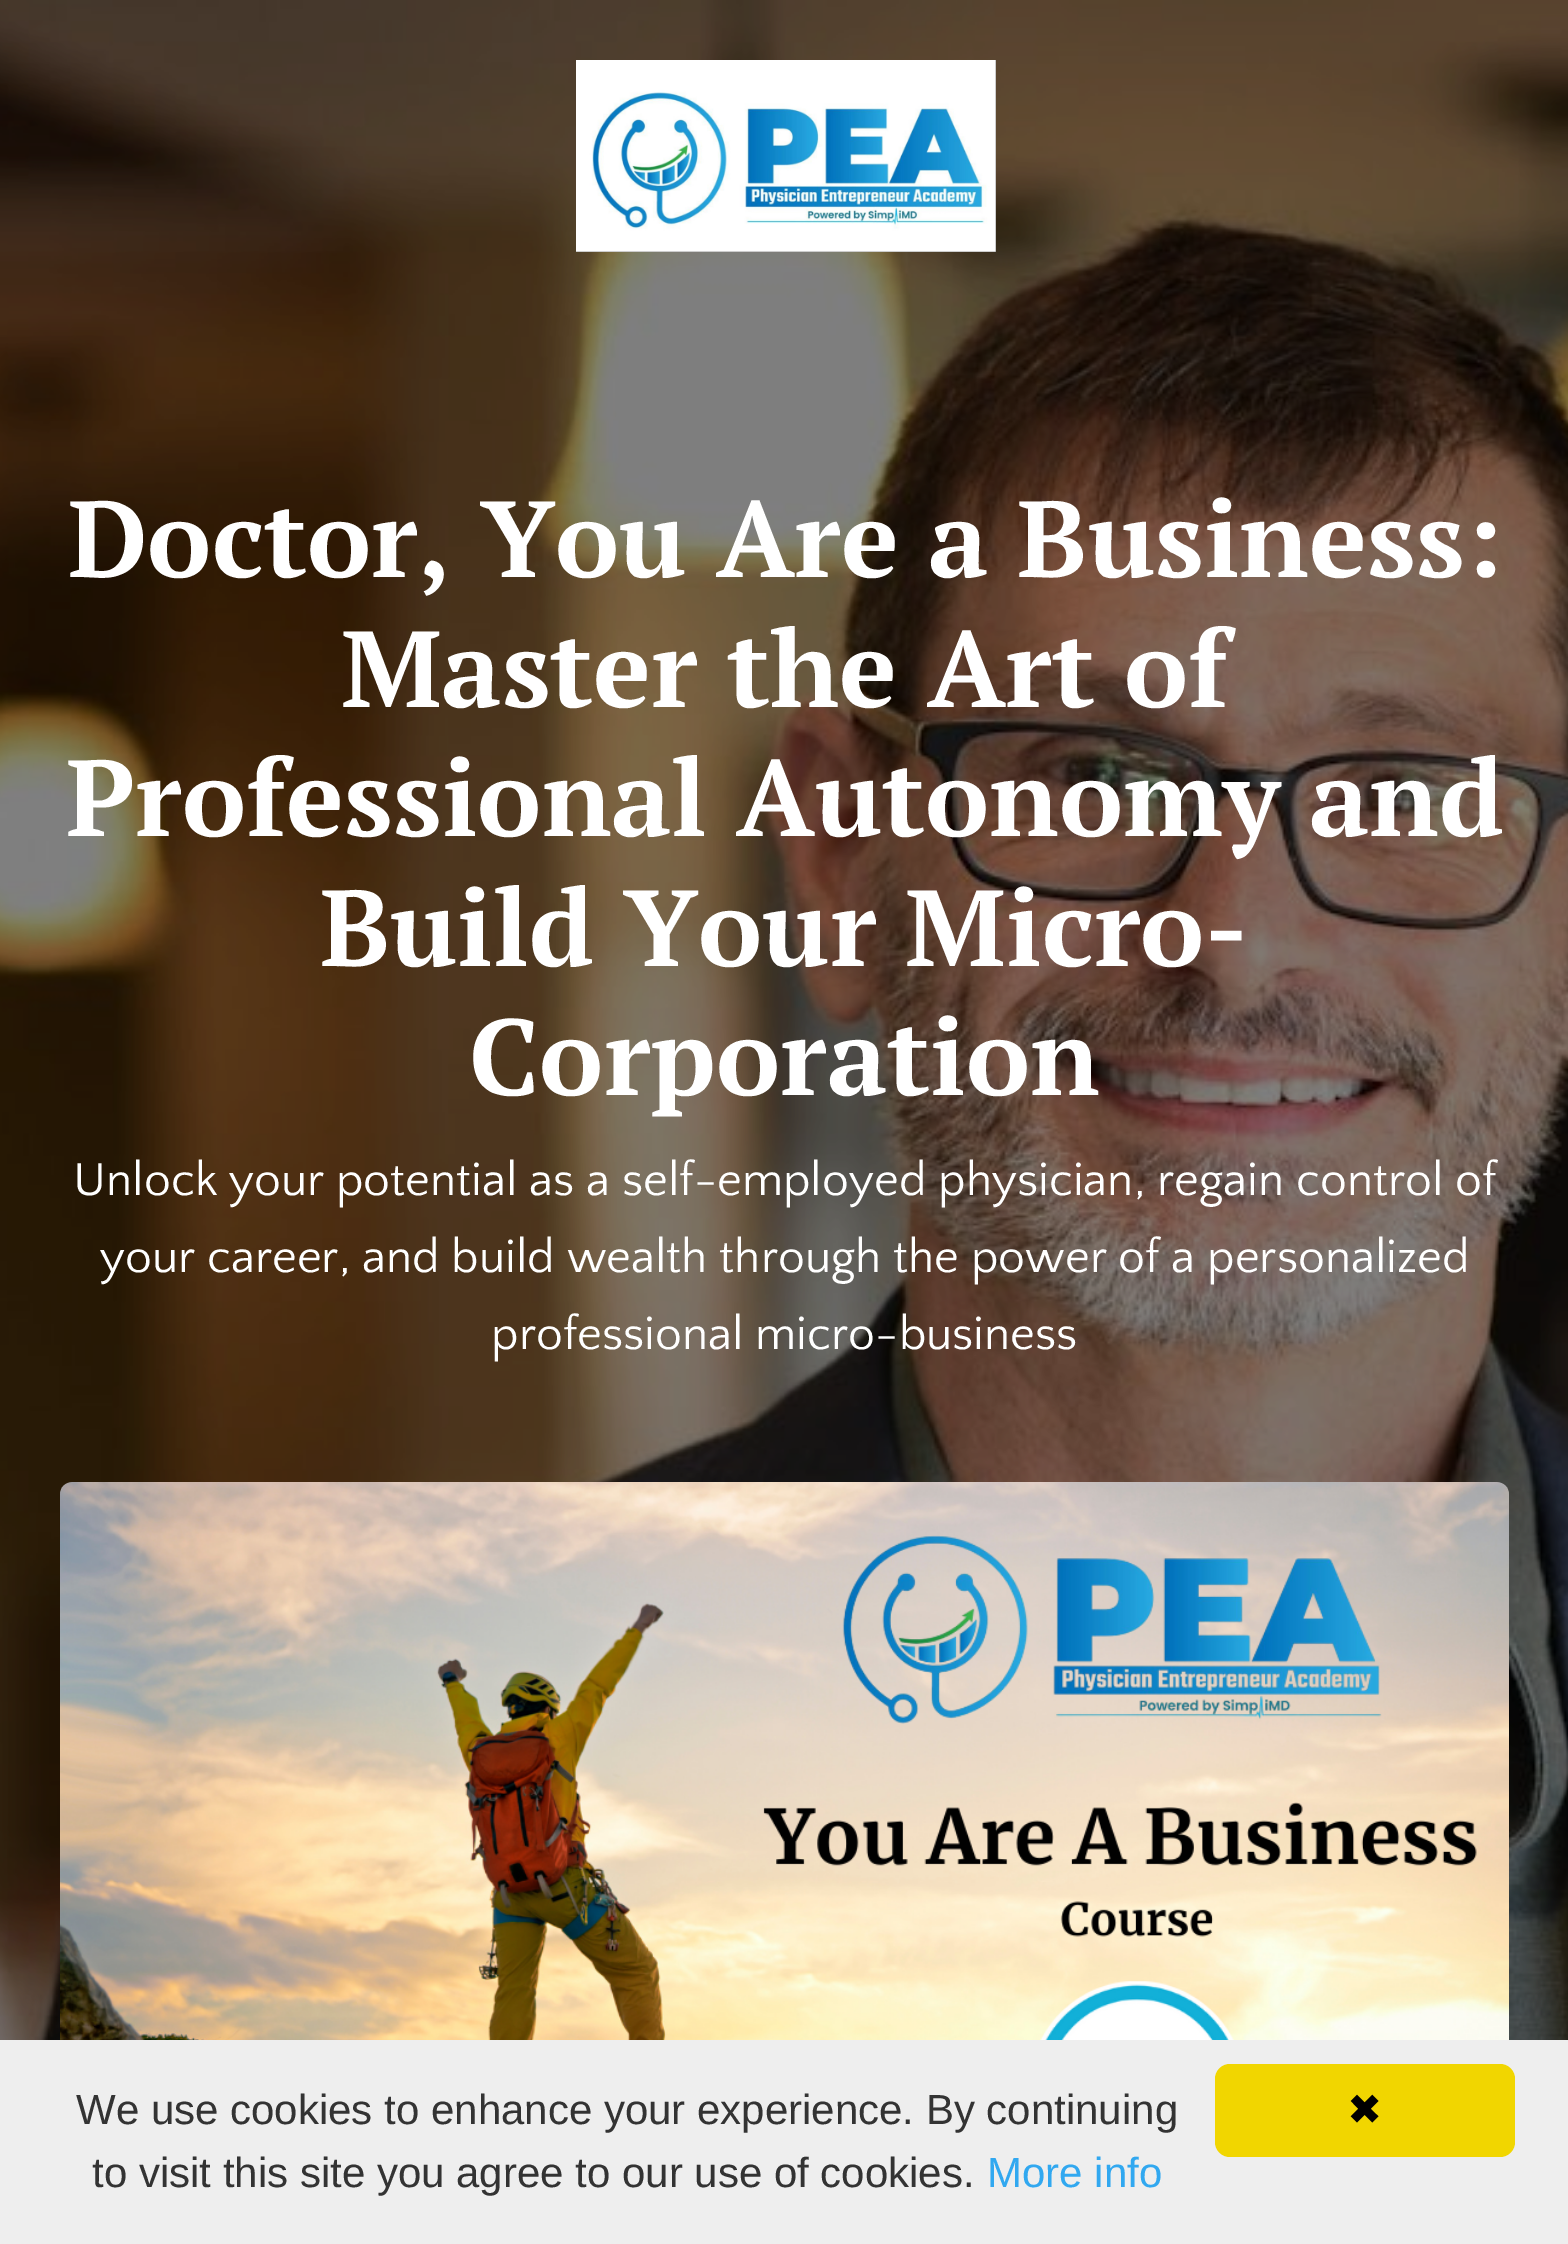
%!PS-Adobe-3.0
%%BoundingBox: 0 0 1568 2244
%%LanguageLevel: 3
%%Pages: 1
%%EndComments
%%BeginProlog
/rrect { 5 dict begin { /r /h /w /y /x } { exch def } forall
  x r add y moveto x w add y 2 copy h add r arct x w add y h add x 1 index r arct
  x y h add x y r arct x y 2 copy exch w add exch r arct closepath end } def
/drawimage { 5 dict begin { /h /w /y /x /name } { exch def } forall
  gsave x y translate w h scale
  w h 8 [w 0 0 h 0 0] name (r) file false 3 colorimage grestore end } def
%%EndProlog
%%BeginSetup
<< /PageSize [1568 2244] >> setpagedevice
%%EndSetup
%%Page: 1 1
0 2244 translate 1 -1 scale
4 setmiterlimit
1 setgray
0 0 1568 2244 rectfill
(images/2.raw) 0 0 1568 2040 drawimage
(images/1.raw) 576 60 420 192 drawimage
(images/3.raw) 60 1482 1449 558 drawimage
0.933 setgray
0 2040 1568 204 rectfill
0.945 0.839 0 setrgbcolor
1215 2064 300 93 15 rrect fill
/PTSerif-Bold [108 0 0 -108 0 0] selectfont
1 setgray
68 577 moveto (Doctor, You Are a Business:) show
341 707 moveto (Master the Art of) show
66 836 moveto (Professional Autonomy and) show
320 966 moveto (Build Your Micro-) show
469 1095 moveto (Corporation) show
/QuattrocentoSans-Regular [48 0 0 -48 0 0] selectfont
73 1195 moveto (Unlock your potential as a self-employed physician, regain control of) show
100 1272 moveto (your career, and build wealth through the power of a personalized) show
491 1349 moveto (professional micro-business) show
/LiberationSans-Regular [42 0 0 -42 0 0] selectfont
0.2 setgray
76 2124 moveto (We use cookies to enhance your experience. By continuing) show
92 2187 moveto (to visit this site you agree to our use of cookies.) show
0.192 0.659 0.941 setrgbcolor
987 2187 moveto (More info) show
/DejaVuSans-Regular [42 0 0 -42 0 0] selectfont
0 setgray
1347 2124 moveto (✖) show
showpage
%%EOF
